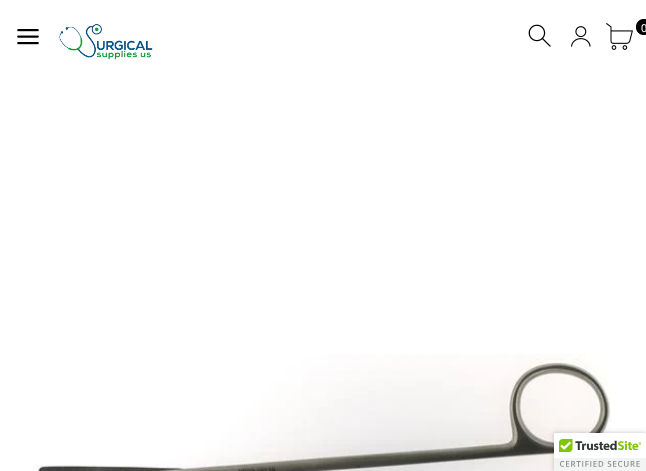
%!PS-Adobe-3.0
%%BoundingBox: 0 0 646 471
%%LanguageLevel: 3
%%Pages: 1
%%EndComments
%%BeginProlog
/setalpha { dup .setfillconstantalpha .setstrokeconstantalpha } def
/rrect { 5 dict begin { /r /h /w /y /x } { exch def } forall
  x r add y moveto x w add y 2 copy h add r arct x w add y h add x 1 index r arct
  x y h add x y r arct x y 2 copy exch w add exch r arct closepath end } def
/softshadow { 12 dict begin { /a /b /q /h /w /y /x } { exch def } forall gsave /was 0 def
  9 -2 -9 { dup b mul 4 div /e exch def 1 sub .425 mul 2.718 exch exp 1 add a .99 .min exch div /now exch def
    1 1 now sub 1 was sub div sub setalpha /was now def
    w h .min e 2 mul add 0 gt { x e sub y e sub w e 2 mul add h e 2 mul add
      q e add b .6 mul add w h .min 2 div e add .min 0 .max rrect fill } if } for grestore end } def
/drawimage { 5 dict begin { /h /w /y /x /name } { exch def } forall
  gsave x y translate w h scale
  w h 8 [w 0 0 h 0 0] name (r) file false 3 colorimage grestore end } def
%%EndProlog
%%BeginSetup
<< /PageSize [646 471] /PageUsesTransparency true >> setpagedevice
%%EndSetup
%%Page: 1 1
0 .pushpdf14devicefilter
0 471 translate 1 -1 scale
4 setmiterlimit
1 setgray
0 0 646 471 rectfill
(images/1.raw) 17 29 22 16 drawimage
(images/2.raw) 59 23 94 37 drawimage
(images/3.raw) 528 24 23 23 drawimage
(images/4.raw) 571 26 20 21 drawimage
(images/5.raw) 606 23 27 27 drawimage
0 setgray
newpath 644 27 8 0 360 arc closepath fill
(images/6.raw) 33 354 578 117 drawimage
554 433 92 38 2 2.5 0.2 softshadow
1 setgray
newpath 556 433 moveto 646 433 lineto 646 471 lineto 554 471 lineto 554 435 lineto 554 434 555 433 556 433 curveto closepath fill
(images/7.raw) 554 433 92 38 drawimage
/OpenSans-Medium [11 0 0 -11 0 0] selectfont
641 32 moveto (0) show
.poppdf14devicefilter showpage
%%EOF
